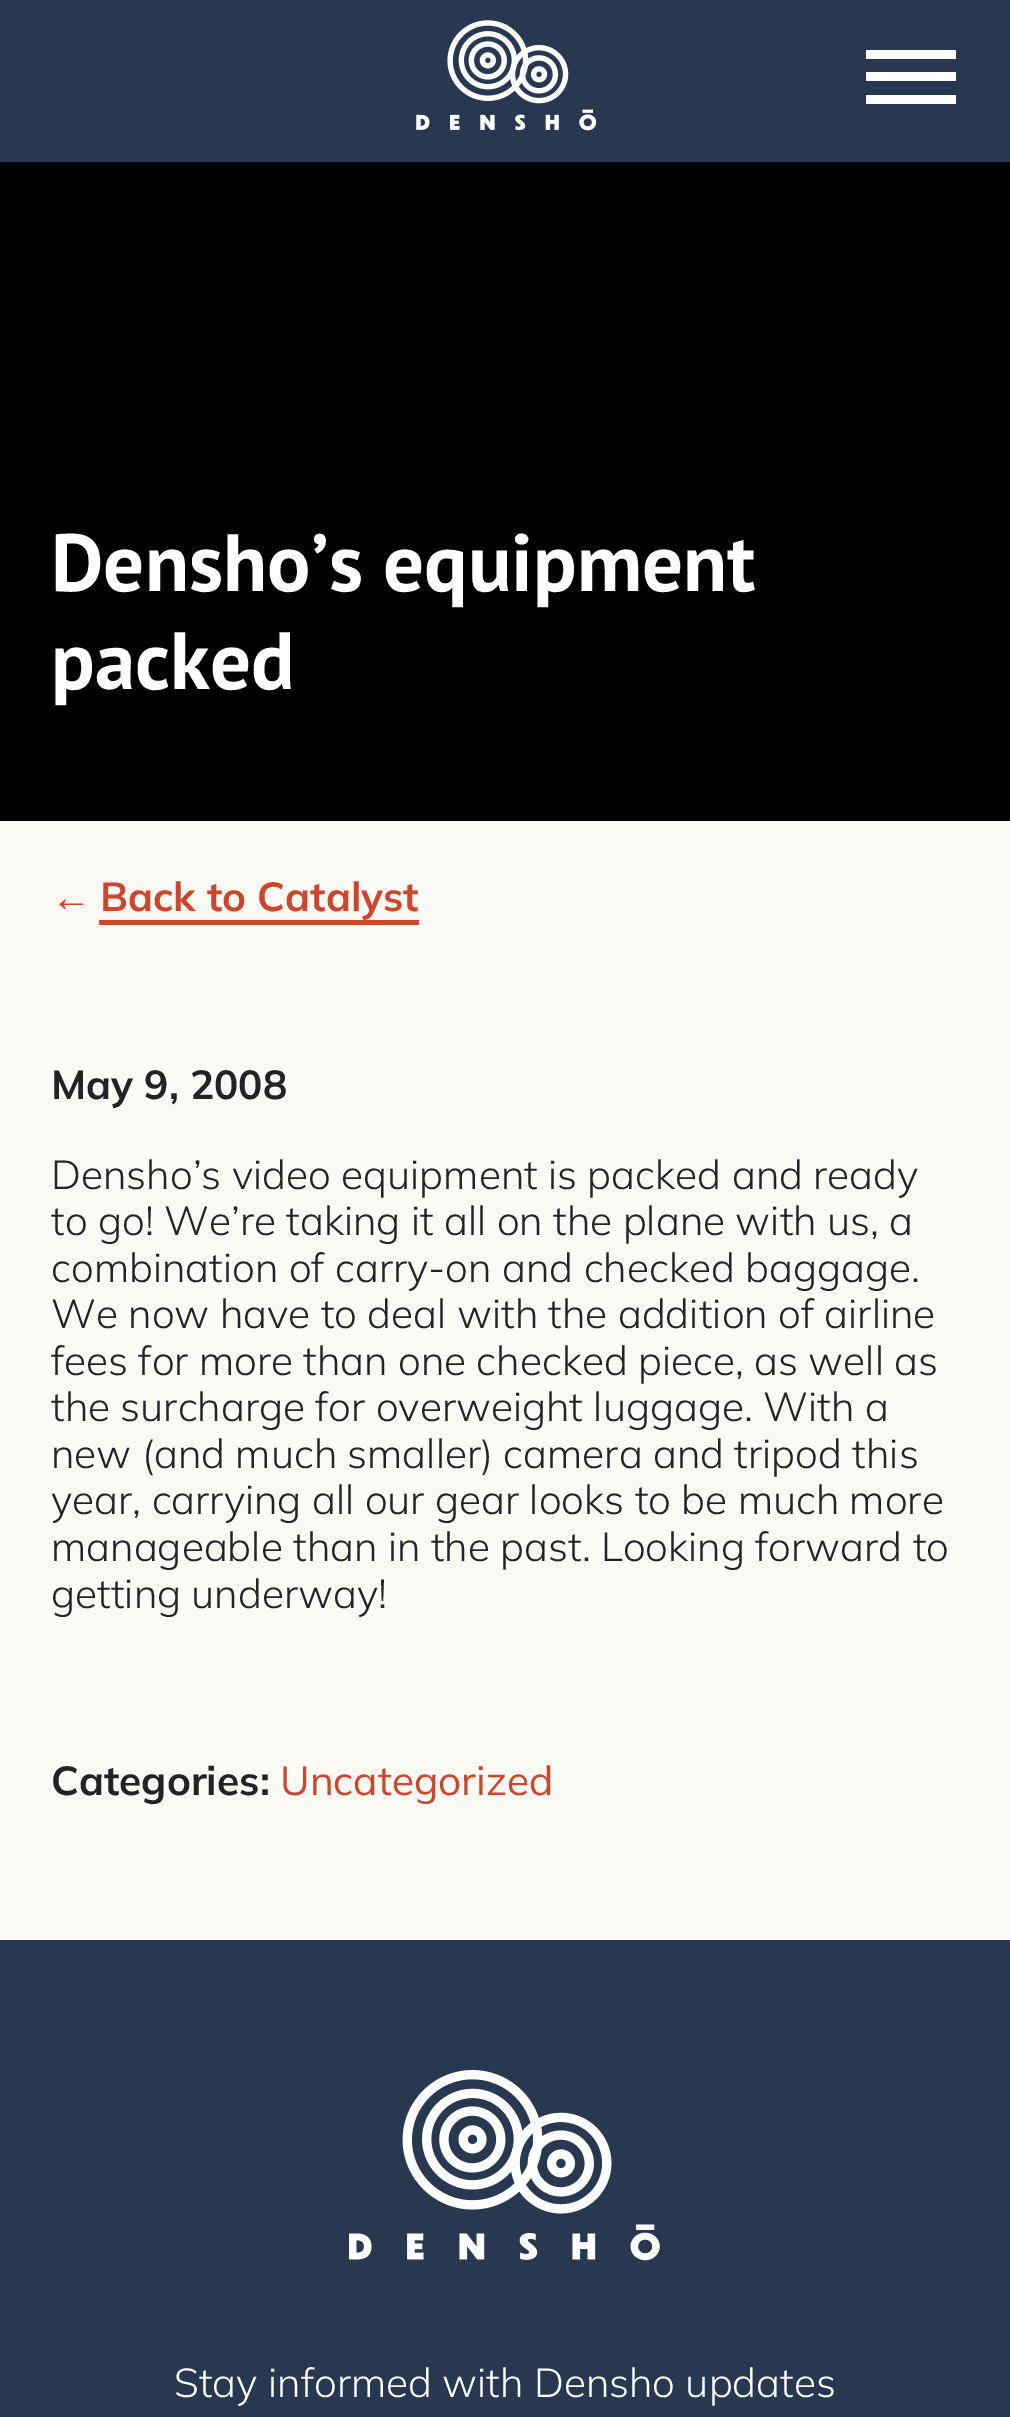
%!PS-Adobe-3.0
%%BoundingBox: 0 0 1010 2417
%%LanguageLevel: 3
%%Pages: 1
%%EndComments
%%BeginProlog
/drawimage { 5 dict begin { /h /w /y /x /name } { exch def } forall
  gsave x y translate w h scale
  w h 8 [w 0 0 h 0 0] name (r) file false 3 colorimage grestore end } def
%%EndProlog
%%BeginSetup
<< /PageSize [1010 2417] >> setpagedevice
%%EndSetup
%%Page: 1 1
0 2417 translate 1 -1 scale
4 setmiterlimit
0 setgray
0 0 1010 2417 rectfill
0.157 0.22 0.318 setrgbcolor
0 0 1010 162 rectfill
(images/1.raw) 416 20 180 111 drawimage
1 setgray
866 50 90 9 rectfill
866 72 90 9 rectfill
866 95 90 9 rectfill
0.988 0.98 0.961 setrgbcolor
0 821 1010 1119 rectfill
0.796 0.275 0.176 setrgbcolor
99 920 320 5 rectfill
0.157 0.22 0.318 setrgbcolor
0 1940 1010 477 rectfill
(images/2.raw) 349 2070 311 191 drawimage
/PTSans-Bold [81 0 0 -81 0 0] selectfont
1 setgray
51 591 moveto (Densho’s equipment) show
51 689 moveto (packed) show
/LiberationSans-Bold [40.5 0 0 -40.5 0 0] selectfont
0.796 0.275 0.176 setrgbcolor
51 911 moveto (←) show
/Mulish-Bold [40.5 0 0 -40.5 0 0] selectfont
100 911 moveto (Back to Catalyst) show
0.133 0.133 0.153 setrgbcolor
51 1099 moveto (May 9, 2008) show
/Mulish-Light [40.5 0 0 -40.5 0 0] selectfont
51 1189 moveto (Densho’s video equipment is packed and ready) show
51 1235 moveto (to go! We’re taking it all on the plane with us, a) show
51 1282 moveto (combination of carry-on and checked baggage.) show
51 1328 moveto (We now have to deal with the addition of airline) show
51 1375 moveto (fees for more than one checked piece, as well as) show
51 1421 moveto (the surcharge for overweight luggage. With a) show
51 1468 moveto (new \(and much smaller\) camera and tripod this) show
51 1514 moveto (year, carrying all our gear looks to be much more) show
51 1561 moveto (manageable than in the past. Looking forward to) show
51 1608 moveto (getting underway!) show
/Mulish-Bold [40.5 0 0 -40.5 0 0] selectfont
51 1795 moveto (Categories:) show
/Mulish-Regular [40.5 0 0 -40.5 0 0] selectfont
0.796 0.275 0.176 setrgbcolor
280 1795 moveto (Uncategorized) show
/Mulish-Light [40.5 0 0 -40.5 0 0] selectfont
1 setgray
174 2397 moveto (Stay informed with Densho updates) show
showpage
%%EOF
